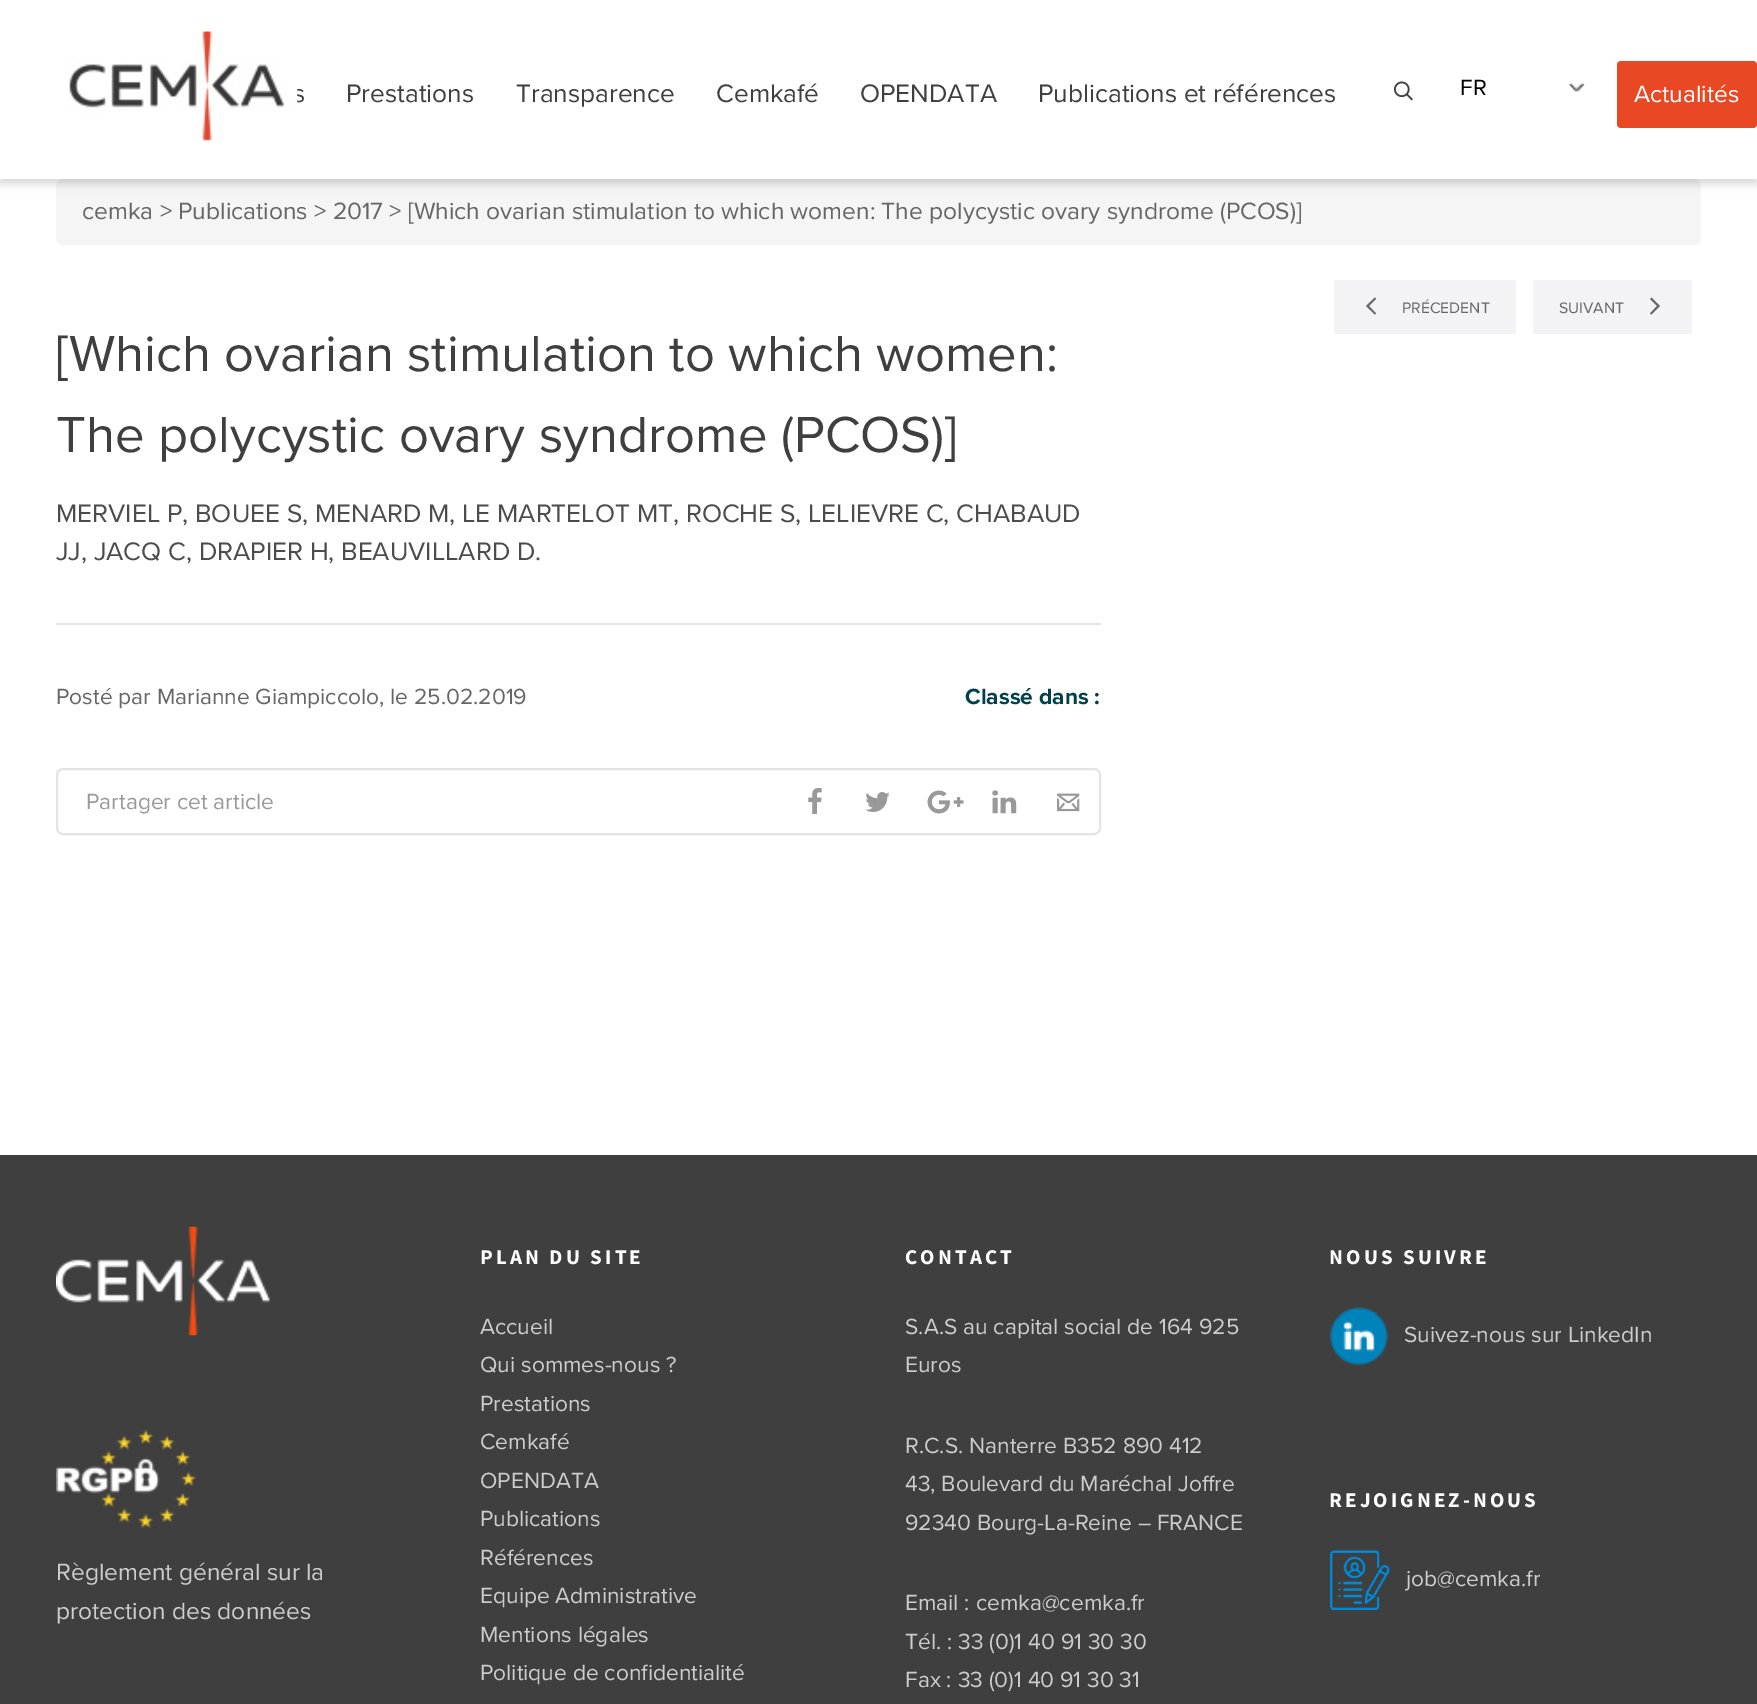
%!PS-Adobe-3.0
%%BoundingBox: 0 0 1757 1704
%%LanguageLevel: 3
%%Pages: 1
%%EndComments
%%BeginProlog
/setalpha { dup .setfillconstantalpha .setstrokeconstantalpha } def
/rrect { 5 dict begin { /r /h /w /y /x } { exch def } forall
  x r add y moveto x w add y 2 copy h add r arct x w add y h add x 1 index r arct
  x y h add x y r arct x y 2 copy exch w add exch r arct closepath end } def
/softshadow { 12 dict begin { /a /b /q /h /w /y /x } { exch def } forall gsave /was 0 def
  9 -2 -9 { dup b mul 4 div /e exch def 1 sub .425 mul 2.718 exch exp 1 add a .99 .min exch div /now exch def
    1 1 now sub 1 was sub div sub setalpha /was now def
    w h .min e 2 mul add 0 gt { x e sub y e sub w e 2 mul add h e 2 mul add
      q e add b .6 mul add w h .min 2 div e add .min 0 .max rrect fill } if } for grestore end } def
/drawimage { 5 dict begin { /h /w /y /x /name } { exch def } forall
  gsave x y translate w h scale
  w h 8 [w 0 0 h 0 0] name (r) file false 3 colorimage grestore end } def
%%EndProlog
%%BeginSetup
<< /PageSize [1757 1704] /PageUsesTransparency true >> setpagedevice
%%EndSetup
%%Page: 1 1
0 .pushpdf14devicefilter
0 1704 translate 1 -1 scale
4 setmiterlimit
1 setgray
0 0 1757 1704 rectfill
0.961 setgray
56 179 1645 66 7 rrect fill
0 setgray
0 5 1757 179 0 4.5 0.1 softshadow
0 5 1757 179 0 4.5 0.05 softshadow
1 setgray
0 0 1757 179 rectfill
(images/2.raw) 1394 81 19 20 drawimage
(images/3.raw) 1569 83 16 9 drawimage
0.91 0.286 0.141 setrgbcolor
1617 61 140 67 4 rrect fill
0.953 0.953 0.965 setrgbcolor
1334 280 182 54 rectfill
0.4 setgray
newpath 1375 314.5 moveto 1366 306 lineto 1375 297.5 lineto 1376 299 lineto 1369 306 lineto 1376 313.5 lineto closepath fill
0.953 0.953 0.965 setrgbcolor
1533 280 159 54 rectfill
0.4 setgray
newpath 1651.5 314.5 moveto 1650 313.5 lineto 1657 306 lineto 1650 299 lineto 1651.5 297.5 lineto 1660 306 lineto closepath fill
0.894 setgray
56 623 1045 2 rectfill
2 setlinewidth
57 769 1043 65 6 rrect stroke
(images/4.raw) 808 788 14 26 drawimage
(images/5.raw) 865 792 25 20 drawimage
(images/6.raw) 927 790 37 24 drawimage
(images/7.raw) 992 790 25 24 drawimage
(images/8.raw) 1057 793 23 19 drawimage
0.247 0.247 0.251 setrgbcolor
0 1155 1757 549 rectfill
(images/9.raw) 56 1226 214 110 drawimage
(images/10.raw) 56 1429 140 99 drawimage
(images/11.raw) 1330 1307 58 58 drawimage
(images/12.raw) 1330 1550 60 60 drawimage
/ProximaNova-Regular [26.25 0 0 -26.25 0 0] selectfont
293 102 moveto (s) show
(images/1.raw) 69 31 229 110 drawimage
346 102 moveto (Prestations) show
516 102 moveto (Transparence) show
716 102 moveto (Cemkafé) show
860 102 moveto (OPENDATA) show
1038 102 moveto (Publications et références) show
/ProximaNova-Regular [22.75 0 0 -22.75 0 0] selectfont
0 setgray
1460 95 moveto (FR) show
/ProximaNova-Regular [24.5 0 0 -24.5 0 0] selectfont
1 setgray
1634 102 moveto (Actualités) show
0.4 setgray
82 219 moveto (cemka > Publications > 2017 > [Which ovarian stimulation to which women: The polycystic ovary syndrome \(PCOS\)]) show
/ProximaNova-Regular [15.75 0 0 -15.75 0 0] selectfont
1402 313 moveto (PRÉCEDENT) show
1559 313 moveto (SUIVANT) show
/ProximaNova-Regular [52.5 0 0 -52.5 0 0] selectfont
0.247 0.247 0.251 setrgbcolor
56 371 moveto ([Which ovarian stimulation to which women:) show
56 452 moveto (The polycystic ovary syndrome \(PCOS\)]) show
/ProximaNova-Regular [26.25 0 0 -26.25 0 0] selectfont
0.298 0.298 0.302 setrgbcolor
56 522 moveto (MERVIEL P, BOUEE S, MENARD M, LE MARTELOT MT, ROCHE S, LELIEVRE C, CHABAUD) show
56 560 moveto (JJ, JACQ C, DRAPIER H, BEAUVILLARD D.) show
/ProximaNova-Regular [22.75 0 0 -22.75 0 0] selectfont
0.4 setgray
56 704 moveto (Posté par Marianne Giampiccolo, le 25.02.2019) show
/ProximaNova-Bold [22.75 0 0 -22.75 0 0] selectfont
0 0.255 0.306 setrgbcolor
965 704 moveto (Classé dans :) show
/ProximaNova-Regular [22.75 0 0 -22.75 0 0] selectfont
0.6 setgray
86 809 moveto (Partager cet article) show
/ProximaNova-Regular [24.5 0 0 -24.5 0 0] selectfont
0.8 setgray
56 1580 moveto (Règlement général sur la) show
56 1619 moveto (protection des données) show
/SourceSansPro-Bold [21 0 0 -21 0 0] selectfont
1 setgray
480 1264 moveto 3.1 0 (PLAN DU SITE) ashow
/ProximaNova-Regular [22.75 0 0 -22.75 0 0] selectfont
0.8 setgray
480 1334 moveto (Accueil) show
480 1372 moveto (Qui sommes-nous ?) show
480 1411 moveto (Prestations) show
480 1449 moveto (Cemkafé) show
480 1488 moveto (OPENDATA) show
480 1526 moveto (Publications) show
480 1565 moveto (Références) show
480 1603 moveto (Equipe Administrative) show
480 1642 moveto (Mentions légales) show
480 1680 moveto (Politique de confidentialité) show
/SourceSansPro-Bold [21 0 0 -21 0 0] selectfont
1 setgray
905 1264 moveto 3.1 0 (CONTACT) ashow
/ProximaNova-Regular [22.75 0 0 -22.75 0 0] selectfont
0.8 setgray
905 1334 moveto (S.A.S au capital social de 164 925) show
905 1372 moveto (Euros) show
905 1453 moveto (R.C.S. Nanterre B352 890 412) show
905 1491 moveto (43, Boulevard du Maréchal Joffre) show
905 1530 moveto (92340 Bourg-La-Reine – FRANCE) show
905 1610 moveto (Email : cemka@cemka.fr) show
905 1649 moveto (Tél. : 33 \(0\)1 40 91 30 30) show
905 1687 moveto (Fax : 33 \(0\)1 40 91 30 31) show
/SourceSansPro-Bold [21 0 0 -21 0 0] selectfont
1 setgray
1329 1264 moveto 3.1 0 (NOUS SUIVRE) ashow
/ProximaNova-Regular [22.75 0 0 -22.75 0 0] selectfont
0.8 setgray
1404 1342 moveto (Suivez-nous sur LinkedIn) show
/SourceSansPro-Bold [21 0 0 -21 0 0] selectfont
1 setgray
1329 1507 moveto 3.1 0 (REJOIGNEZ-NOUS) ashow
/ProximaNova-Regular [22.75 0 0 -22.75 0 0] selectfont
0.8 setgray
1406 1586 moveto (job@cemka.fr) show
.poppdf14devicefilter showpage
%%EOF
